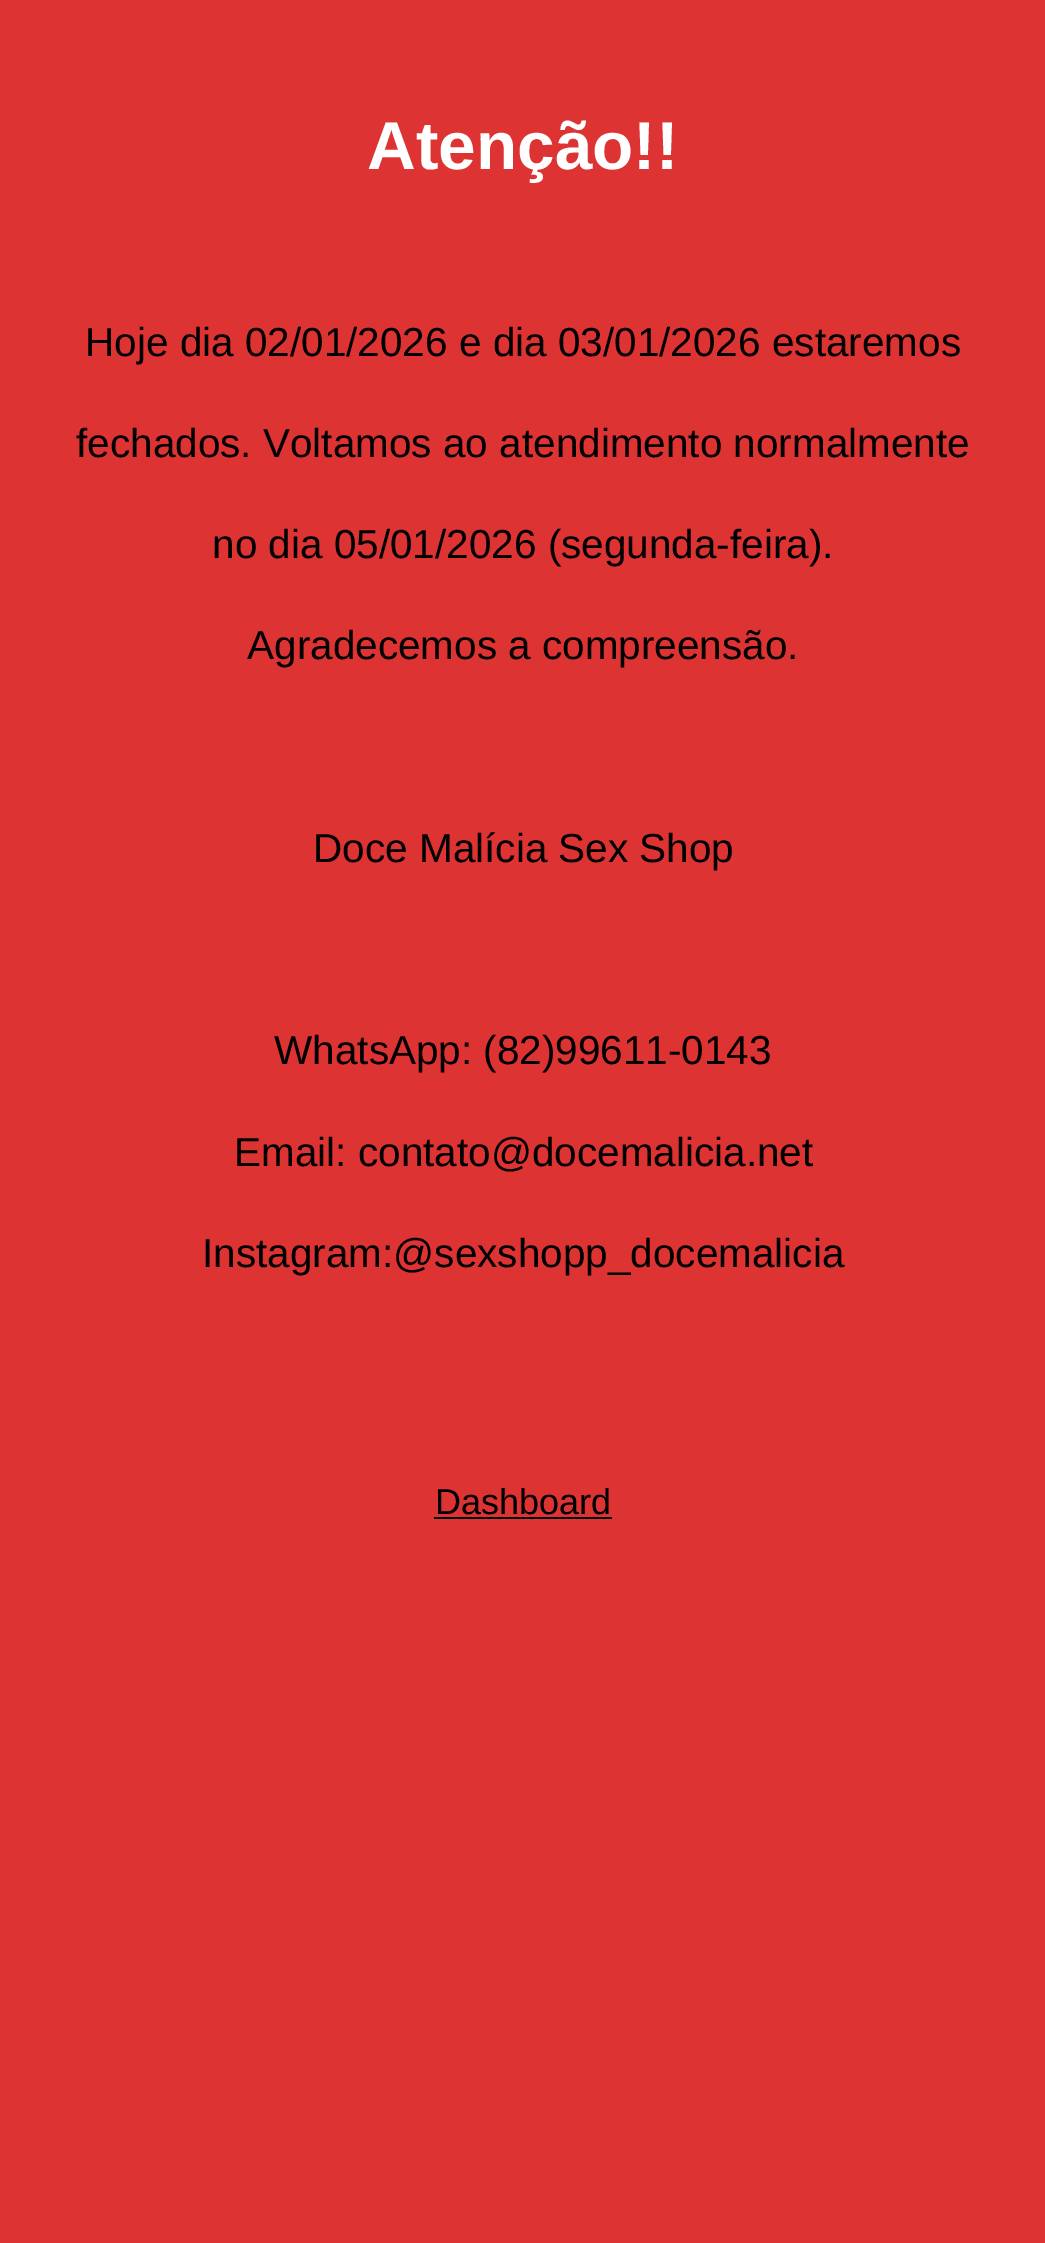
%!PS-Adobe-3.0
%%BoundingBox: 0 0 1045 2243
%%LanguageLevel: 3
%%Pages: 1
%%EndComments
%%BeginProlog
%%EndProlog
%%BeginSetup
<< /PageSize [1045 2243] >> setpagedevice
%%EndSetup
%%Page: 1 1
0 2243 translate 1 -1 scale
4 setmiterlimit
0.867 0.2 0.2 setrgbcolor
0 0 1045 2243 rectfill
0 setgray
434 1517 178 2 rectfill
/LiberationSans-Bold [67.5 0 0 -67.5 0 0] selectfont
1 setgray
367 169 moveto (Atenção!!) show
/LiberationSans-Regular [40.5 0 0 -40.5 0 0] selectfont
0 setgray
85 356 moveto (Hoje dia 02/01/2026 e dia 03/01/2026 estaremos) show
76 457 moveto (fechados. Voltamos ao atendimento normalmente) show
212 558 moveto (no dia 05/01/2026 \(segunda-feira\).) show
247 659 moveto (Agradecemos a compreensão.) show
313 862 moveto (Doce Malícia Sex Shop) show
274 1064 moveto (WhatsApp: \(82\)99611-0143) show
234 1166 moveto (Email: contato@docemalicia.net) show
202 1267 moveto (Instagram:@sexshopp_docemalicia) show
/LiberationSans-Regular [36 0 0 -36 0 0] selectfont
435 1514 moveto (Dashboard) show
showpage
%%EOF
